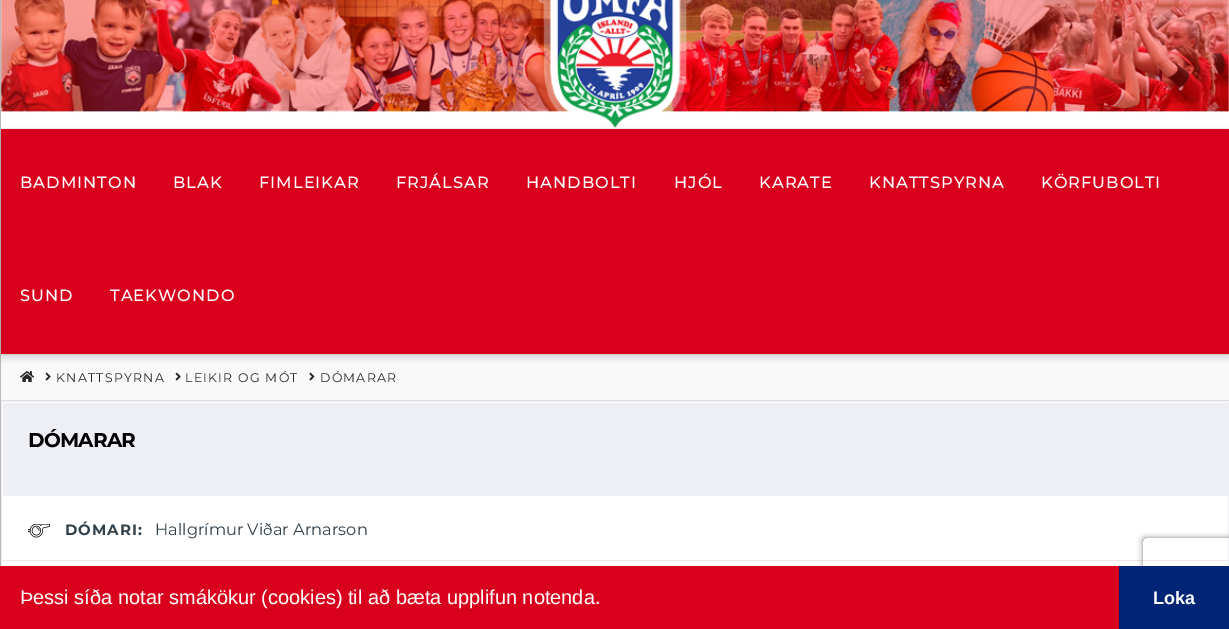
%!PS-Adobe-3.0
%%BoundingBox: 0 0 1229 629
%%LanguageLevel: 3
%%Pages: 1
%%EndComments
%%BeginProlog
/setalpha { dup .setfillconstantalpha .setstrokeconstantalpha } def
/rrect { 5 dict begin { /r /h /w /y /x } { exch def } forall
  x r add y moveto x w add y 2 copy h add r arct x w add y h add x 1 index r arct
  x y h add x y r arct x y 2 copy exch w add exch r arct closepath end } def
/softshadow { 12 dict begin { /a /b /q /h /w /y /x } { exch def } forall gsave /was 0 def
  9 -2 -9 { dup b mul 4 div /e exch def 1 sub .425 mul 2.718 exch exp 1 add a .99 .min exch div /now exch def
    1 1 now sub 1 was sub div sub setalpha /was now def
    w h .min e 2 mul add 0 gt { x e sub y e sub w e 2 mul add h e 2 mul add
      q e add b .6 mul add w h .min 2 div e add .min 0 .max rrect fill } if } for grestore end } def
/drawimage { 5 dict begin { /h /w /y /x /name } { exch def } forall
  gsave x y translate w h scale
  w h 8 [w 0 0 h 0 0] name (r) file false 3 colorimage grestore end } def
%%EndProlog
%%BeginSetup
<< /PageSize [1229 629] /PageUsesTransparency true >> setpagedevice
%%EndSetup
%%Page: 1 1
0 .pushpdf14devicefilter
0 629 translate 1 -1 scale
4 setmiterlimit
1 setgray
0 0 1229 629 rectfill
0.725 setgray
0 0 1 566 rectfill
0.949 setgray
1 128 1228 1 rectfill
(images/1.raw) 1 0 1228 128 drawimage
0.976 setgray
1 355 1228 45 rectfill
0 setgray
1 131 1228 227 0 3.5 0.13 softshadow
0.8 setgray
1 354 1228 1 rectfill
0.851 0 0.114 setrgbcolor
1 129 1228 225 rectfill
0.878 setgray
1 400 1228 1 rectfill
(images/2.raw) 20 371 14 11 drawimage
(images/3.raw) 45 372 6 9 drawimage
(images/3.raw) 175 372 6 9 drawimage
(images/4.raw) 309 372 6 9 drawimage
0.933 0.937 0.957 setrgbcolor
1.5 401.5 1227 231 2 rrect stroke
newpath 5.5 403 moveto 1225.5 403 lineto 1227 403 1228 404 1228 405.5 curveto 1228 496 lineto 3 496 lineto 3 405.5 lineto 3 404 4 403 5.5 403 curveto closepath fill
0.91 setgray
3 560 1225 1 rectfill
(images/5.raw) 28 524 22 14 drawimage
gsave
newpath 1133 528 moveto 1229 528 lineto 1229 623 lineto 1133 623 lineto closepath 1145.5 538 moveto 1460.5 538 lineto 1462 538 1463 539 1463 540.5 curveto 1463 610.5 lineto 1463 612 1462 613 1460.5 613 curveto 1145.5 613 lineto 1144 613 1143 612 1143 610.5 curveto 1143 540.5 lineto 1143 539 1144 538 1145.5 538 curveto closepath eoclip newpath
0.502 setgray
1143 538 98 75 2.5 3 1 softshadow
grestore
0.851 0 0.114 setrgbcolor
0 566 1119 63 rectfill
0 0.145 0.463 setrgbcolor
1119 566 110 63 rectfill
/Montserrat-Medium [16.25 0 0 -16.25 0 0] selectfont
1 setgray
20 188 moveto 1 0 (BADMINTON) ashow
173 188 moveto 1 0 (BLAK) ashow
259 188 moveto 1 0 (FIMLEIKAR) ashow
396 188 moveto 1 0 (FRJÁLSAR) ashow
526 188 moveto 1 0 (HANDBOLTI) ashow
674 188 moveto 1 0 (HJÓL) ashow
759 188 moveto 1 0 (KARATE) ashow
869 188 moveto 1 0 (KNATTSPYRNA) ashow
1041 188 moveto 1 0 (KÖRFUBOLTI) ashow
20 301 moveto 1 0 (SUND) ashow
110 301 moveto 1 0 (TAEKWONDO) ashow
/Montserrat-Regular [12.5 0 0 -12.5 0 0] selectfont
0.153 setgray
56 382 moveto 1.25 0 (KNATTSPYRNA) ashow
185 382 moveto 1.25 0 (LEIKIR OG MÓT) ashow
320 382 moveto 1.25 0 (DÓMARAR) ashow
/Montserrat-Bold [20 0 0 -20 0 0] selectfont
0 setgray
28 447 moveto -0.75 0 (DÓMARAR) ashow
/Montserrat-Bold [15 0 0 -15 0 0] selectfont
0.192 0.251 0.294 setrgbcolor
65 535 moveto 1 0 (DÓMARI:) ashow
/Montserrat-Regular [16.25 0 0 -16.25 0 0] selectfont
155 535 moveto (Hallgrímur Viðar Arnarson) show
/LiberationSans-Regular [20 0 0 -20 0 0] selectfont
1 setgray
20 604 moveto (Þessi síða notar smákökur \(cookies\) til að bæta upplifun notenda.) show
/LiberationSans-Bold [18 0 0 -18 0 0] selectfont
1153 604 moveto (Loka) show
.poppdf14devicefilter showpage
%%EOF
